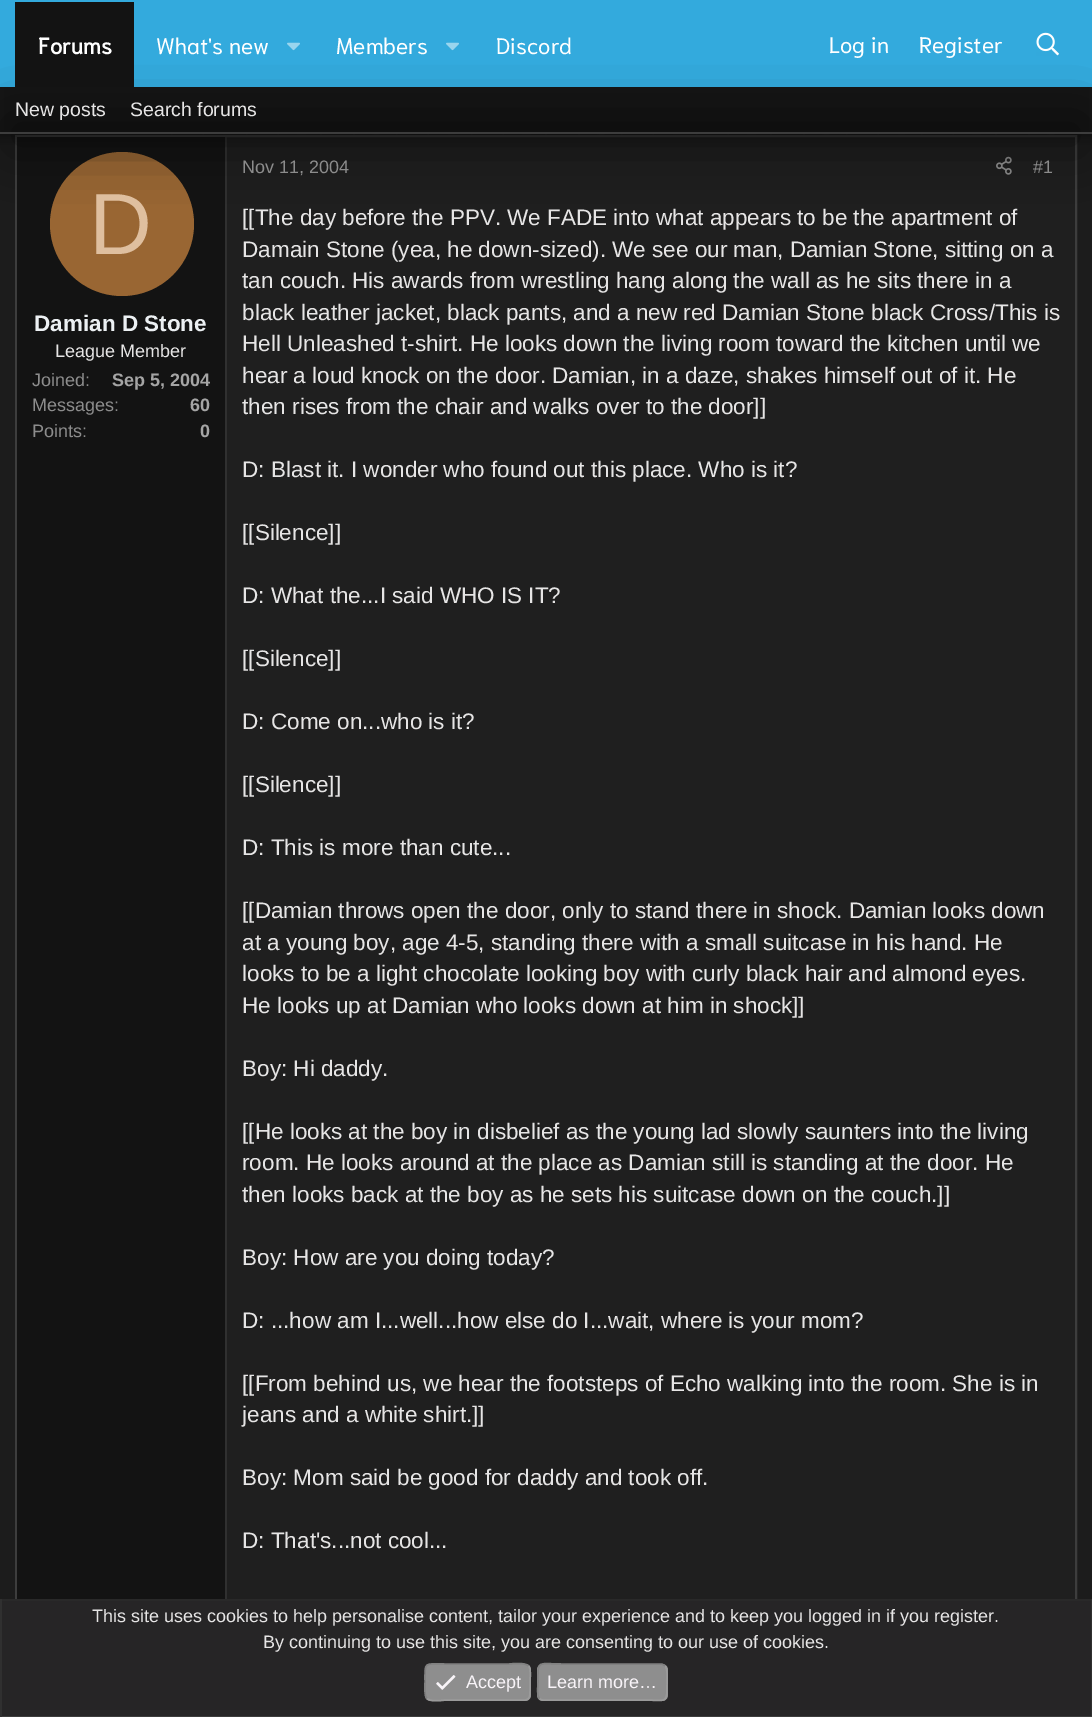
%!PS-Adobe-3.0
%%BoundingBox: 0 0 1092 1717
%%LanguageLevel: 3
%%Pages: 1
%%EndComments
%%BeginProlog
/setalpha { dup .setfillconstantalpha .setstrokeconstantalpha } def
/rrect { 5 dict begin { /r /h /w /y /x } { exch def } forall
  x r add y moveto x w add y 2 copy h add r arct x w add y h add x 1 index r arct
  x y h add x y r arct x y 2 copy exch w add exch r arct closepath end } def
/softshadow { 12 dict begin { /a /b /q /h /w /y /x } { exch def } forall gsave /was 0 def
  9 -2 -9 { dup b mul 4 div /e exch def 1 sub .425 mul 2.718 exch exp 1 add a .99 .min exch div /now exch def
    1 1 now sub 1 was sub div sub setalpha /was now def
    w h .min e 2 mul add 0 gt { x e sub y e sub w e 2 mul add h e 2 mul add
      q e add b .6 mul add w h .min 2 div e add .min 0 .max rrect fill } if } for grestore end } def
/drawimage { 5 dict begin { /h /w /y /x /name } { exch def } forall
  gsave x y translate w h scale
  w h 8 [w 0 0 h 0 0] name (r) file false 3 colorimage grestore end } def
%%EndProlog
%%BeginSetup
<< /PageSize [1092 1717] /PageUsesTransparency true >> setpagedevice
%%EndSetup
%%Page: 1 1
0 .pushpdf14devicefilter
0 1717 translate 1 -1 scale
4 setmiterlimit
0.11 setgray
0 0 1092 1717 rectfill
(images/1.raw) 167 134 902 1 drawimage
0.122 setgray
227 137 848 1462 rectfill
0.239 setgray
2 setlinewidth
16 136 1060 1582 rectstroke
0.075 setgray
17 137 208 1462 rectfill
0.188 setgray
225 137 2 1462 rectfill
0.6 0.4 0.2 setrgbcolor
newpath 122 224 72 0 360 arc closepath fill
(images/4.raw) 996 156 16 19 drawimage
0 setgray
-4 -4 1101 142 0 6 0.3 softshadow
0.2 0.667 0.867 setrgbcolor
0 0 1092 87 rectfill
0 setgray
18 129 1056 11 0 28.5 0.56 softshadow
0.075 setgray
15 2 119 85 rectfill
(images/2.raw) 287 42 13 9 drawimage
(images/2.raw) 446 42 13 9 drawimage
(images/3.raw) 1036 32 23 24 drawimage
0 130 1 2 rectfill
0.239 setgray
0 132 1092 2 rectfill
0.149 0.145 0.149 setrgbcolor
2 1601 1089 115 rectfill
0.161 setgray
0 1599 1092 2 rectfill
0.188 setgray
1091 1599 1 118 rectfill
0.239 setgray
0 1716 1092 1 rectfill
0.188 setgray
0 1599 2 118 rectfill
0.557 setgray
425 1664 106 37 6 rrect fill
0.608 setgray
1.5 setlinewidth
newpath 528.5 1666 moveto 531.5 1668.5 530 1678.5 530 1682 curveto 530 1703.5 532 1700 509 1700 curveto 446 1700 lineto 444.5 1700 430.5 1702.5 427 1698.5 curveto stroke
0.506 setgray
newpath 427 1698.5 moveto 424 1696 425 1686 425 1682 curveto 425 1661 423.5 1664 446 1664 curveto 509 1664 lineto 511 1664 525 1662 528.5 1666 curveto stroke
(images/5.raw) 436 1675 20 15 drawimage
0.557 setgray
537 1664 131 37 6 rrect fill
0.608 setgray
newpath 665 1666 moveto 668 1668.5 667 1678.5 667 1682 curveto 667 1705 668 1700 642 1700 curveto 543 1700 lineto 541.5 1700 540.5 1699.5 539.5 1698.5 curveto stroke
0.506 setgray
newpath 539.5 1698.5 moveto 536.5 1696 538 1686 538 1682 curveto 538 1659.5 536.5 1664 563 1664 curveto 661.5 1664 lineto 663 1664.5 664 1665 665 1666 curveto stroke
/Niramit-Bold [22.5 0 0 -22.5 0 0] selectfont
1 setgray
38 54 moveto (Forums) show
/Niramit-Regular [22.5 0 0 -22.5 0 0] selectfont
156 54 moveto (What's new) show
336 54 moveto (Members) show
496 54 moveto (Discord) show
829 53 moveto (Log in) show
919 53 moveto (Register) show
/LiberationSans-Regular [19.5 0 0 -19.5 0 0] selectfont
0.902 0.898 0.898 setrgbcolor
15 116 moveto (New posts) show
130 116 moveto (Search forums) show
/LiberationSans-Regular [87 0 0 -87 0 0] selectfont
0.875 0.749 0.624 setrgbcolor
89 254 moveto (D) show
/LiberationSans-Bold [22.5 0 0 -22.5 0 0] selectfont
0.925 0.941 0.953 setrgbcolor
34 331 moveto (Damian D Stone) show
/LiberationSans-Regular [18 0 0 -18 0 0] selectfont
0.902 0.898 0.898 setrgbcolor
55 357 moveto (League Member) show
0.549 setgray
32 386 moveto (Joined:) show
/LiberationSans-Bold [18 0 0 -18 0 0] selectfont
0.647 setgray
112 386 moveto (Sep 5, 2004) show
/LiberationSans-Regular [18 0 0 -18 0 0] selectfont
0.549 setgray
32 411 moveto (Messages:) show
/LiberationSans-Bold [18 0 0 -18 0 0] selectfont
0.647 setgray
190 411 moveto (60) show
/LiberationSans-Regular [18 0 0 -18 0 0] selectfont
0.549 setgray
32 437 moveto (Points:) show
/LiberationSans-Bold [18 0 0 -18 0 0] selectfont
0.647 setgray
200 437 moveto (0) show
/LiberationSans-Regular [18 0 0 -18 0 0] selectfont
0.549 setgray
242 173 moveto (Nov 11, 2004) show
1033 173 moveto (#1) show
/LiberationSans-Regular [22.5 0 0 -22.5 0 0] selectfont
0.902 0.898 0.898 setrgbcolor
242 225 moveto ([[The day before the PPV. We FADE into what appears to be the apartment of) show
242 257 moveto (Damain Stone \(yea, he down-sized\). We see our man, Damian Stone, sitting on a) show
242 288 moveto (tan couch. His awards from wrestling hang along the wall as he sits there in a) show
242 320 moveto (black leather jacket, black pants, and a new red Damian Stone black Cross/This is) show
242 351 moveto (Hell Unleashed t-shirt. He looks down the living room toward the kitchen until we) show
242 383 moveto (hear a loud knock on the door. Damian, in a daze, shakes himself out of it. He) show
242 414 moveto (then rises from the chair and walks over to the door]]) show
242 477 moveto (D: Blast it. I wonder who found out this place. Who is it?) show
242 540 moveto ([[Silence]]) show
242 603 moveto (D: What the...I said WHO IS IT?) show
242 666 moveto ([[Silence]]) show
242 729 moveto (D: Come on...who is it?) show
242 792 moveto ([[Silence]]) show
242 855 moveto (D: This is more than cute...) show
242 918 moveto ([[Damian throws open the door, only to stand there in shock. Damian looks down) show
242 950 moveto (at a young boy, age 4-5, standing there with a small suitcase in his hand. He) show
242 981 moveto (looks to be a light chocolate looking boy with curly black hair and almond eyes.) show
242 1013 moveto (He looks up at Damian who looks down at him in shock]]) show
242 1076 moveto (Boy: Hi daddy.) show
242 1139 moveto ([[He looks at the boy in disbelief as the young lad slowly saunters into the living) show
242 1170 moveto (room. He looks around at the place as Damian still is standing at the door. He) show
242 1202 moveto (then looks back at the boy as he sets his suitcase down on the couch.]]) show
242 1265 moveto (Boy: How are you doing today?) show
242 1328 moveto (D: ...how am I...well...how else do I...wait, where is your mom?) show
242 1391 moveto ([[From behind us, we hear the footsteps of Echo walking into the room. She is in) show
242 1422 moveto (jeans and a white shirt.]]) show
242 1485 moveto (Boy: Mom said be good for daddy and took off.) show
242 1548 moveto (D: That's...not cool...) show
/LiberationSans-Regular [18 0 0 -18 0 0] selectfont
92 1622 moveto (This site uses cookies to help personalise content, tailor your experience and to keep you logged in if you register.) show
263 1648 moveto (By continuing to use this site, you are consenting to our use of cookies.) show
0.973 0.957 0.973 setrgbcolor
466 1688 moveto (Accept) show
547 1688 moveto (Learn more…) show
.poppdf14devicefilter showpage
%%EOF
